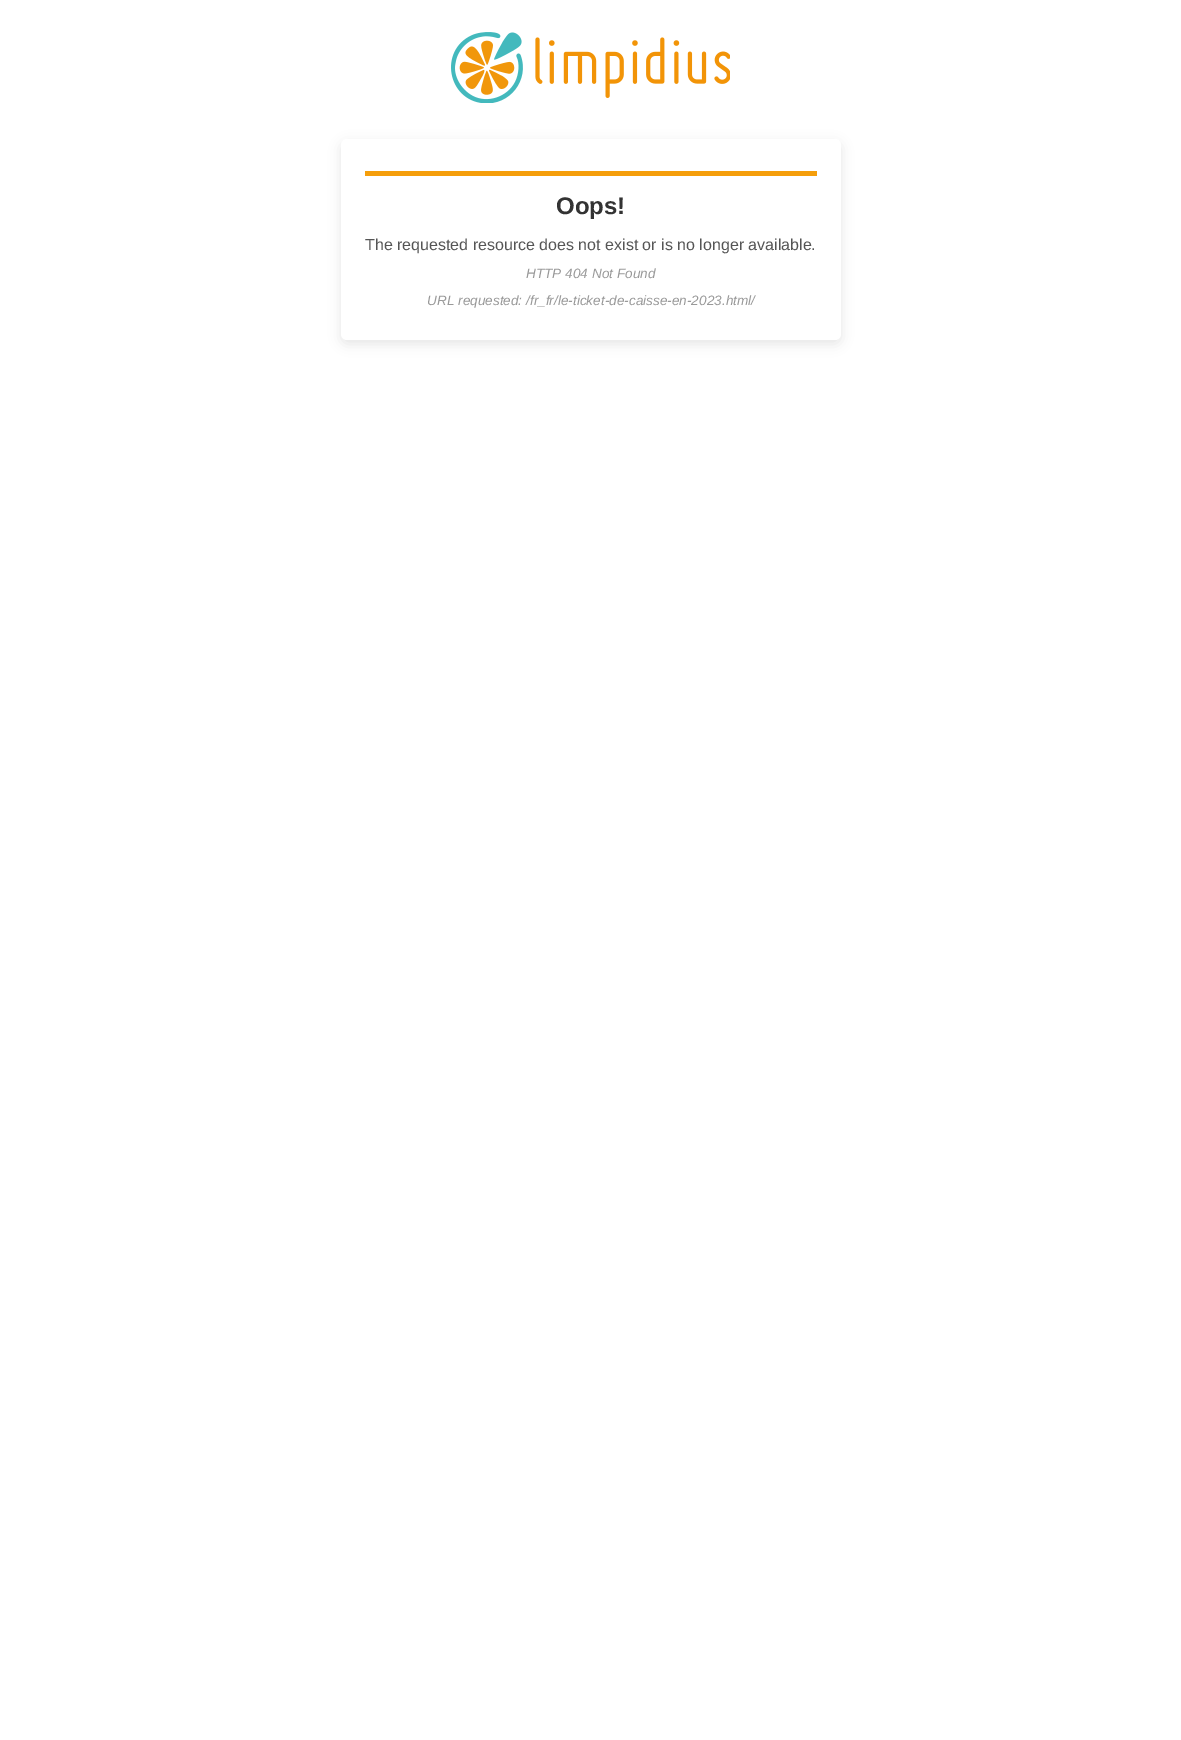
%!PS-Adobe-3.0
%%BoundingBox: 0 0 1181 1740
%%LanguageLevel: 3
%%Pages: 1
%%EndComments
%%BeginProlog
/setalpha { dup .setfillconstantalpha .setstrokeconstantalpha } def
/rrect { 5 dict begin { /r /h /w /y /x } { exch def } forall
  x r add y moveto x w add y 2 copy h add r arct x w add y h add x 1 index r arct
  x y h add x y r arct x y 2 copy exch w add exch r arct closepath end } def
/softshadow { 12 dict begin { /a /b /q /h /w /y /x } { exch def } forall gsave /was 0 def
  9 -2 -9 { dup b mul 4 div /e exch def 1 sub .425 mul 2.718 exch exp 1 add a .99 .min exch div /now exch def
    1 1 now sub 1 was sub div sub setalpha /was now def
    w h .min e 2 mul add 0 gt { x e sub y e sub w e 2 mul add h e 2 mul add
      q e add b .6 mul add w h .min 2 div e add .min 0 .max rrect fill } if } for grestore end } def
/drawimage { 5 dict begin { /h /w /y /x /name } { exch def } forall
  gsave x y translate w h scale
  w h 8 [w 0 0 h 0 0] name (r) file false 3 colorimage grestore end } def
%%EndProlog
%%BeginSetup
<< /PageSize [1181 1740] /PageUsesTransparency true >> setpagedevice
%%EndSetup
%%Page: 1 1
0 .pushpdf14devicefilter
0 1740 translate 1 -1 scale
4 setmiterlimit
1 setgray
0 0 1181 1740 rectfill
(images/1.raw) 451 32 279 71 drawimage
0 setgray
341 143 500 201 6 6 0.1 softshadow
1 setgray
341 139 500 201 6 rrect fill
0.961 0.62 0.043 setrgbcolor
365 171 452 5 rectfill
/LiberationSans-Bold [24 0 0 -24 0 0] selectfont
0.2 setgray
556 214 moveto (Oops!) show
/LiberationSans-Regular [16 0 0 -16 0 0] selectfont
0.333 setgray
365 250 moveto (The requested resource does not exist or is no longer available.) show
/LiberationSans-Italic [13.6 0 0 -13.6 0 0] selectfont
0.6 setgray
526 278 moveto (HTTP 404 Not Found) show
427 305 moveto (URL requested: /fr_fr/le-ticket-de-caisse-en-2023.html/) show
.poppdf14devicefilter showpage
%%EOF
